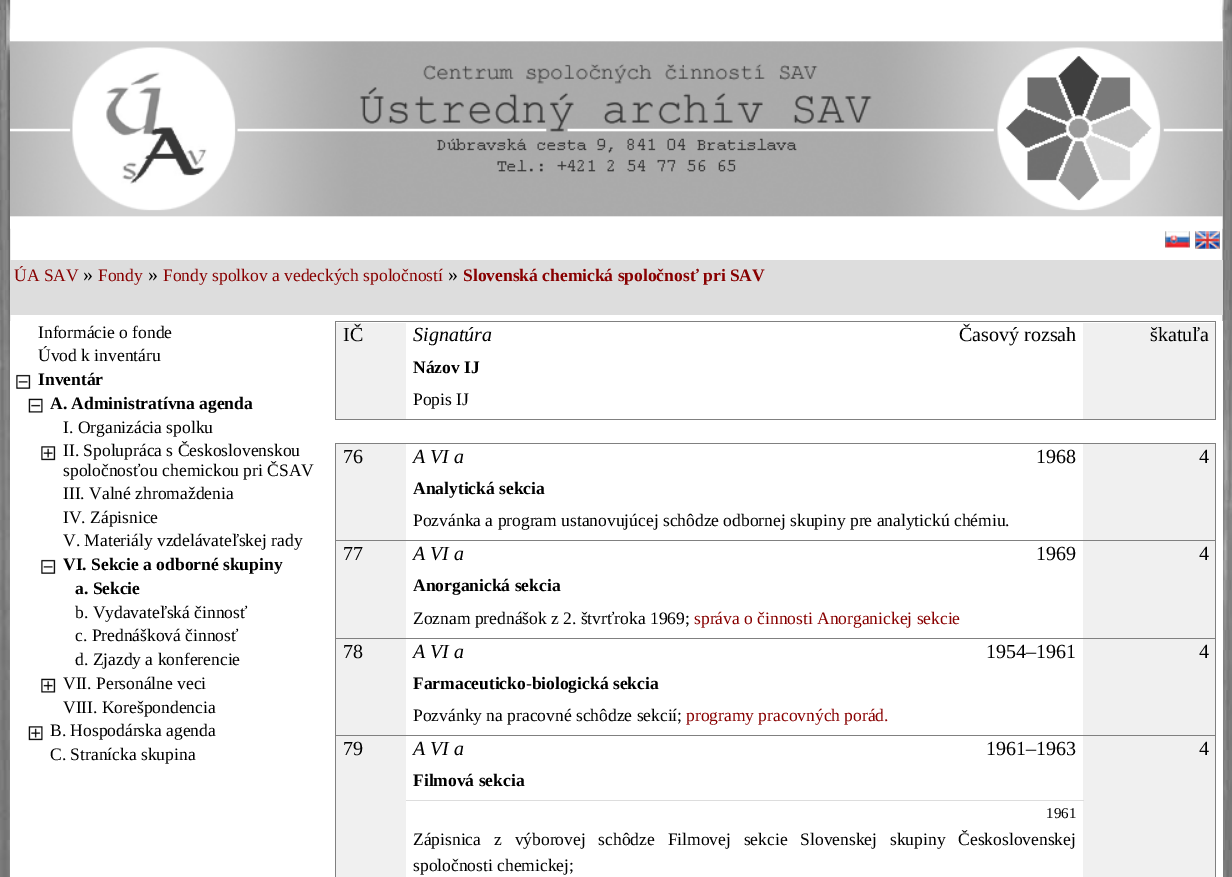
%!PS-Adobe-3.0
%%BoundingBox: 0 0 1232 877
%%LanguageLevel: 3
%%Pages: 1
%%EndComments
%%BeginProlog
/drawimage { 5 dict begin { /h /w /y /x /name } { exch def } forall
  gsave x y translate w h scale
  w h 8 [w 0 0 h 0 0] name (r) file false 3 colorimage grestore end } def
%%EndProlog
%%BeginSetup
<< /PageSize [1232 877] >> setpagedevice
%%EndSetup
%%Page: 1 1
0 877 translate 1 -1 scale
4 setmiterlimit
1 setgray
0 0 1232 877 rectfill
(images/1.raw) 0 0 1232 877 drawimage
(images/2.raw) 10 28 1213 201 drawimage
(images/3.raw) 1165 231 25 17 drawimage
(images/4.raw) 1195 231 25 18 drawimage
0.867 setgray
10 260 1213 55 rectfill
1 setgray
10 321 1213 556 rectfill
(images/5.raw) 16 374 15 15 drawimage
(images/6.raw) 28 398 15 15 drawimage
(images/7.raw) 41 446 15 15 drawimage
(images/5.raw) 41 559 15 15 drawimage
(images/8.raw) 41 678 15 15 drawimage
(images/9.raw) 28 726 15 15 drawimage
0.502 setgray
335 321 881 1 rectfill
1215 321 1 99 rectfill
335 419 881 1 rectfill
335 321 1 99 rectfill
0.941 setgray
336 323 70 96 rectfill
1083 323 132 96 rectfill
0.502 setgray
335 443 881 1 rectfill
1215 443 1 434 rectfill
335 443 1 434 rectfill
0.941 setgray
336 444 70 96 rectfill
1083 444 132 96 rectfill
336 541 70 97 rectfill
1083 541 132 97 rectfill
0.502 setgray
335 540 881 1 rectfill
0.941 setgray
336 639 70 96 rectfill
1083 639 132 96 rectfill
0.502 setgray
335 638 881 1 rectfill
0.941 setgray
336 736 70 141 rectfill
1083 736 132 141 rectfill
0.502 setgray
335 735 881 1 rectfill
0.867 setgray
406 800 678 1 rectfill
/LiberationSerif-Regular [17.5 0 0 -17.5 0 0] selectfont
0.533 0 0 setrgbcolor
14 281 moveto (ÚA SAV) show
/LiberationSerif-Regular [20 0 0 -20 0 0] selectfont
0 setgray
83 281 moveto (») show
/LiberationSerif-Regular [17.5 0 0 -17.5 0 0] selectfont
0.533 0 0 setrgbcolor
98 281 moveto (Fondy) show
/LiberationSerif-Regular [20 0 0 -20 0 0] selectfont
0 setgray
148 281 moveto (») show
/LiberationSerif-Regular [17.5 0 0 -17.5 0 0] selectfont
0.533 0 0 setrgbcolor
163 281 moveto (Fondy spolkov a vedeckých spoločností) show
/LiberationSerif-Regular [20 0 0 -20 0 0] selectfont
0 setgray
448 281 moveto (») show
/LiberationSerif-Bold [17.5 0 0 -17.5 0 0] selectfont
0.533 0 0 setrgbcolor
463 281 moveto (Slovenská chemická spoločnosť pri SAV) show
/LiberationSerif-Regular [17.5 0 0 -17.5 0 0] selectfont
0 setgray
38 338 moveto (Informácie o fonde) show
38 361 moveto (Úvod k inventáru) show
/LiberationSerif-Bold [17.5 0 0 -17.5 0 0] selectfont
38 385 moveto (Inventár) show
50 409 moveto (A. Administratívna agenda) show
/LiberationSerif-Regular [17.5 0 0 -17.5 0 0] selectfont
63 433 moveto (I. Organizácia spolku) show
63 456 moveto (II. Spolupráca s Československou) show
63 476 moveto (spoločnosťou chemickou pri ČSAV) show
63 499 moveto (III. Valné zhromaždenia) show
63 523 moveto (IV. Zápisnice) show
63 546 moveto (V. Materiály vzdelávateľskej rady) show
/LiberationSerif-Bold [17.5 0 0 -17.5 0 0] selectfont
63 570 moveto (VI. Sekcie a odborné skupiny) show
75 594 moveto (a. Sekcie) show
/LiberationSerif-Regular [17.5 0 0 -17.5 0 0] selectfont
75 618 moveto (b. Vydavateľská činnosť) show
75 641 moveto (c. Prednášková činnosť) show
75 665 moveto (d. Zjazdy a konferencie) show
63 689 moveto (VII. Personálne veci) show
63 713 moveto (VIII. Korešpondencia) show
50 736 moveto (B. Hospodárska agenda) show
50 760 moveto (C. Stranícka skupina) show
/LiberationSerif-Regular [20 0 0 -20 0 0] selectfont
343 341 moveto (IČ) show
/LiberationSerif-Italic [20 0 0 -20 0 0] selectfont
413 341 moveto (Signatúra) show
/LiberationSerif-Regular [20 0 0 -20 0 0] selectfont
959 341 moveto (Časový rozsah) show
1150 341 moveto (škatuľa) show
/LiberationSerif-Bold [17.5 0 0 -17.5 0 0] selectfont
413 373 moveto (Názov IJ) show
/LiberationSerif-Regular [17.5 0 0 -17.5 0 0] selectfont
413 405 moveto (Popis IJ) show
/LiberationSerif-Regular [20 0 0 -20 0 0] selectfont
343 463 moveto (76) show
/LiberationSerif-Italic [20 0 0 -20 0 0] selectfont
413 463 moveto (A VI a) show
/LiberationSerif-Regular [20 0 0 -20 0 0] selectfont
1036 463 moveto (1968) show
1199 463 moveto (4) show
/LiberationSerif-Bold [17.5 0 0 -17.5 0 0] selectfont
413 494 moveto (Analytická sekcia) show
/LiberationSerif-Regular [17.5 0 0 -17.5 0 0] selectfont
413 526 moveto (Pozvánka a program ustanovujúcej schôdze odbornej skupiny pre analytickú chémiu.) show
/LiberationSerif-Regular [20 0 0 -20 0 0] selectfont
343 560 moveto (77) show
/LiberationSerif-Italic [20 0 0 -20 0 0] selectfont
413 560 moveto (A VI a) show
/LiberationSerif-Regular [20 0 0 -20 0 0] selectfont
1036 560 moveto (1969) show
1199 560 moveto (4) show
/LiberationSerif-Bold [17.5 0 0 -17.5 0 0] selectfont
413 591 moveto (Anorganická sekcia) show
/LiberationSerif-Regular [17.5 0 0 -17.5 0 0] selectfont
413 624 moveto (Zoznam prednášok z 2. štvrťroka 1969;) show
0.533 0 0 setrgbcolor
694 624 moveto (správa o činnosti Anorganickej sekcie) show
/LiberationSerif-Regular [20 0 0 -20 0 0] selectfont
0 setgray
343 658 moveto (78) show
/LiberationSerif-Italic [20 0 0 -20 0 0] selectfont
413 658 moveto (A VI a) show
/LiberationSerif-Regular [20 0 0 -20 0 0] selectfont
986 658 moveto (1954–1961) show
1199 658 moveto (4) show
/LiberationSerif-Bold [17.5 0 0 -17.5 0 0] selectfont
413 689 moveto (Farmaceuticko-biologická sekcia) show
/LiberationSerif-Regular [17.5 0 0 -17.5 0 0] selectfont
413 721 moveto (Pozvánky na pracovné schôdze sekcií;) show
0.533 0 0 setrgbcolor
686 721 moveto (programy pracovných porád.) show
/LiberationSerif-Regular [20 0 0 -20 0 0] selectfont
0 setgray
343 755 moveto (79) show
/LiberationSerif-Italic [20 0 0 -20 0 0] selectfont
413 755 moveto (A VI a) show
/LiberationSerif-Regular [20 0 0 -20 0 0] selectfont
986 755 moveto (1961–1963) show
1199 755 moveto (4) show
/LiberationSerif-Bold [17.5 0 0 -17.5 0 0] selectfont
413 786 moveto (Filmová sekcia) show
/LiberationSerif-Regular [15 0 0 -15 0 0] selectfont
1046 818 moveto (1961) show
/LiberationSerif-Regular [17.5 0 0 -17.5 0 0] selectfont
413 845 moveto 8.5 0 32 (Zápisnica z výborovej schôdze Filmovej sekcie Slovenskej skupiny Československej) widthshow
413 871 moveto (spoločnosti chemickej;) show
showpage
%%EOF
